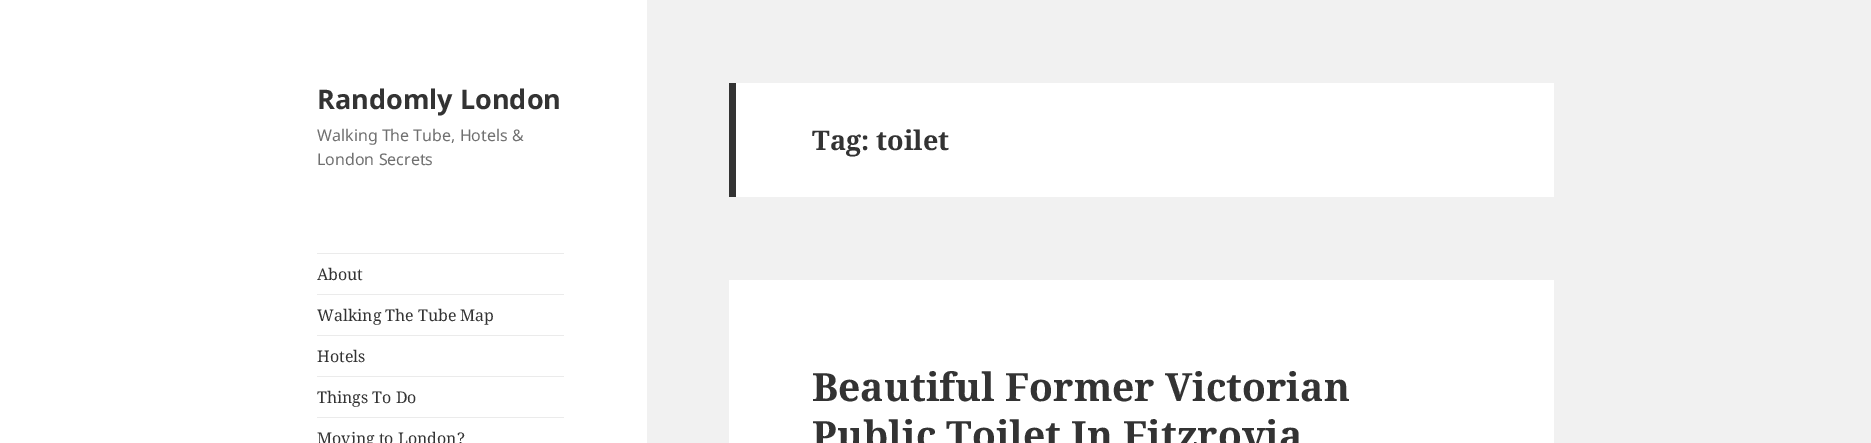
%!PS-Adobe-3.0
%%BoundingBox: 0 0 1871 443
%%LanguageLevel: 3
%%Pages: 1
%%EndComments
%%BeginProlog
%%EndProlog
%%BeginSetup
<< /PageSize [1871 443] >> setpagedevice
%%EndSetup
%%Page: 1 1
0 443 translate 1 -1 scale
4 setmiterlimit
0.945 setgray
0 0 1871 443 rectfill
1 setgray
0 0 647 443 rectfill
0.922 setgray
317 253 247 1 rectfill
317 294 247 1 rectfill
317 335 247 1 rectfill
317 376 247 1 rectfill
317 417 247 1 rectfill
1 setgray
736 83 818 114 rectfill
0.2 setgray
729 83 7 114 rectfill
1 setgray
729 280 825 163 rectfill
/NotoSans-Bold [27 0 0 -27 0 0] selectfont
0.2 setgray
317 109 moveto (Randomly London) show
/NotoSans-Regular [16 0 0 -16 0 0] selectfont
0.439 setgray
317 141 moveto (Walking The Tube, Hotels &) show
317 165 moveto (London Secrets) show
/NotoSerif-Regular [16 0 0 -16 0 0] selectfont
0.2 setgray
317 280 moveto (About) show
317 321 moveto (Walking The Tube Map) show
317 362 moveto (Hotels) show
317 403 moveto (Things To Do) show
317 444 moveto (Moving to London?) show
/NotoSerif-Bold [27 0 0 -27 0 0] selectfont
812 150 moveto (Tag: toilet) show
/NotoSerif-Bold [39 0 0 -39 0 0] selectfont
812 401 moveto (Beautiful Former Victorian) show
812 449 moveto (Public Toilet In Fitzrovia) show
showpage
%%EOF
